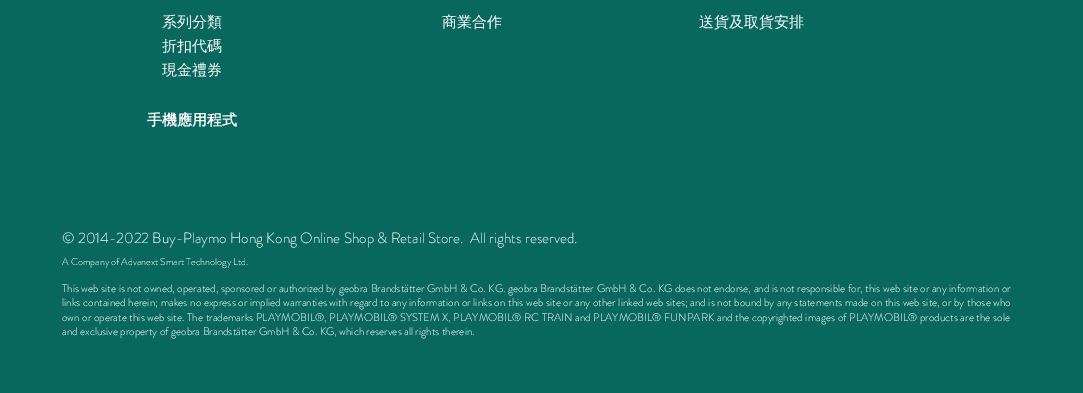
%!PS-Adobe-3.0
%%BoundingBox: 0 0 1083 393
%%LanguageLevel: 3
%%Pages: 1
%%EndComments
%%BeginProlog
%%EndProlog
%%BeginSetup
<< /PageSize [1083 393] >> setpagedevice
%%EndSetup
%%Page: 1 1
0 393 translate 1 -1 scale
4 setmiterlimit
0.035 0.408 0.369 setrgbcolor
0 0 1083 393 rectfill
/WenQuanYiZenHei-Medium [15 0 0 -15 0 0] selectfont
1 setgray
162 27 moveto (系列分類) show
162 51 moveto (折扣代碼) show
162 75 moveto (現金禮券) show
442 27 moveto (商業合作) show
699 27 moveto (送貨及取貨安排) show
/WenQuanYiZenHei-Bold [15 0 0 -15 0 0] selectfont
147 125 moveto (手機應用程式) show
/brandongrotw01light-Light [15 0 0 -15 0 0] selectfont
62 243 moveto (© 2014-2022 Buy-Playmo Hong Kong Online Shop & Retail Store.  All rights reserved.) show
/brandongrotw01light-Light [10 0 0 -10 0 0] selectfont
62 265 moveto (A Company of Advanext Smart Technology Ltd.) show
/brandongrotw01light-Light [11 0 0 -11 0 0] selectfont
62 292 moveto 0.15 0 32 (This web site is not owned, operated, sponsored or authorized by geobra Brandstätter GmbH & Co. KG. geobra Brandstätter GmbH & Co. KG does not endorse, and is not responsible for, this web site or any information or) widthshow
62 306 moveto 0.25 0 32 (links contained herein; makes no express or implied warranties with regard to any information or links on this web site or any other linked web sites; and is not bound by any statements made on this web site, or by those who) widthshow
62 321 moveto 0.25 0 32 (own or operate this web site. The trademarks PLAYMOBIL®, PLAYMOBIL® SYSTEM X, PLAYMOBIL® RC TRAIN and PLAYMOBIL® FUNPARK and the copyrighted images of PLAYMOBIL® products are the sole) widthshow
62 335 moveto (and exclusive property of geobra Brandstätter GmbH & Co. KG, which reserves all rights therein.) show
showpage
%%EOF
